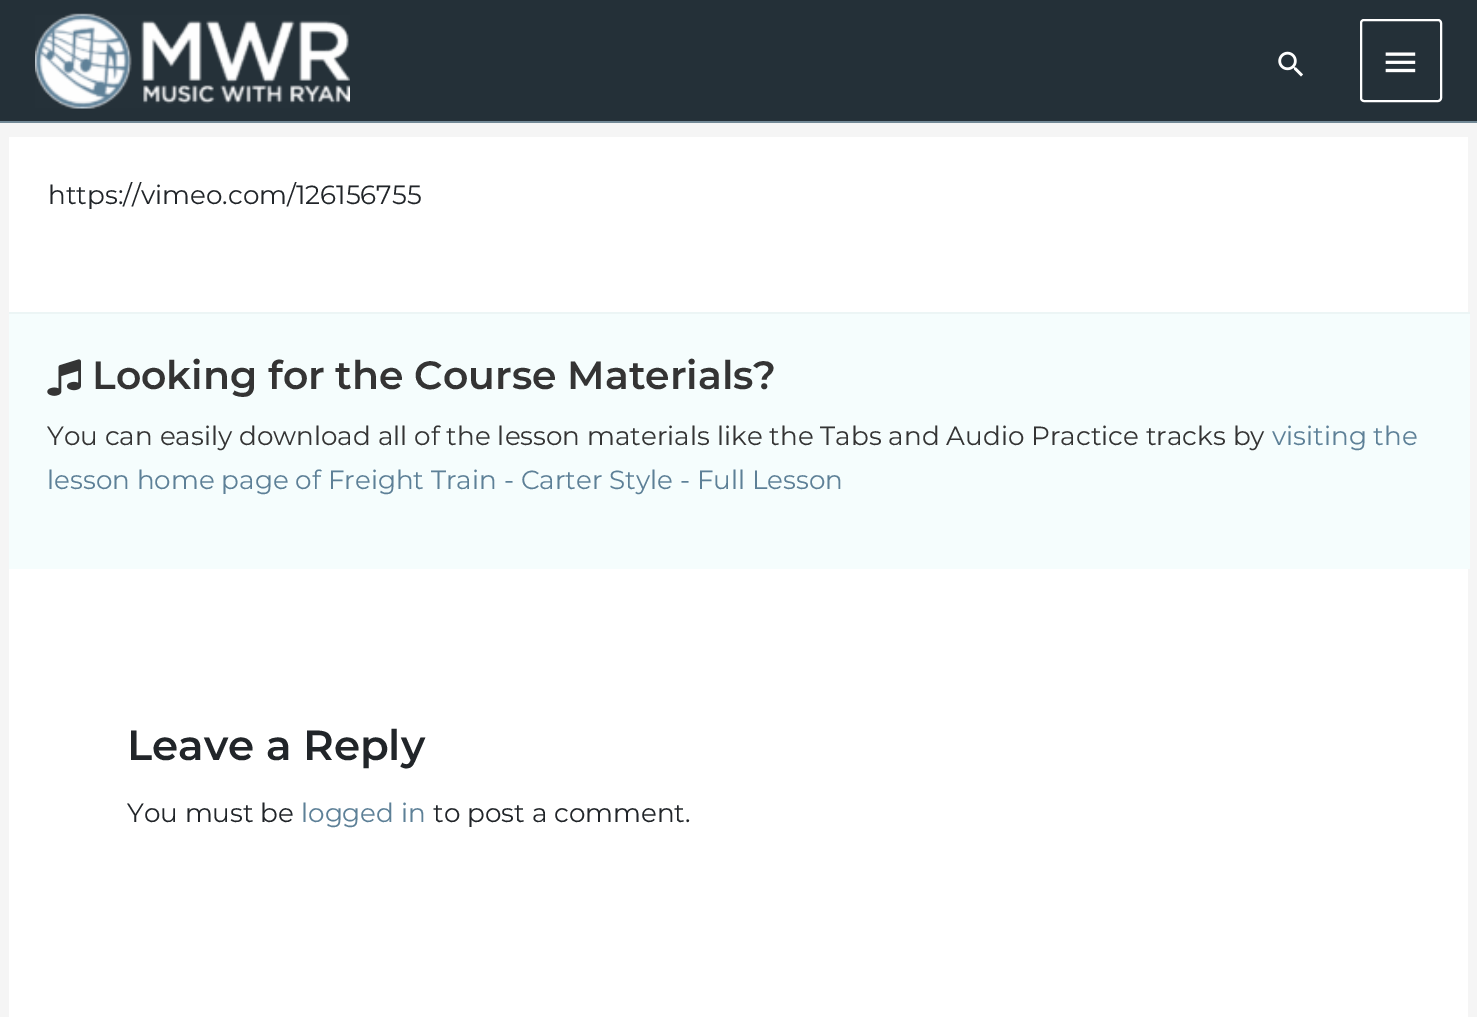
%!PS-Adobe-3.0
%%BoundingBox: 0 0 1477 1017
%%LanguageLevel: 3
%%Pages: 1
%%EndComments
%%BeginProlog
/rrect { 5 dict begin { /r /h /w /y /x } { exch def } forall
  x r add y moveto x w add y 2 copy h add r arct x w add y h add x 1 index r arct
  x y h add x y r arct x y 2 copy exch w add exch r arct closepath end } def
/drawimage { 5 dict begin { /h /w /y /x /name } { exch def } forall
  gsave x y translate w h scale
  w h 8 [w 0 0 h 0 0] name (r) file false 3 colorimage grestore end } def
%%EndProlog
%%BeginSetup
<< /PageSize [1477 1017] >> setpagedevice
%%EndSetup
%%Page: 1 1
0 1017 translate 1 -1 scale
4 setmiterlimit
0.961 setgray
0 0 1477 1017 rectfill
0.141 0.188 0.22 setrgbcolor
0 0 1477 121 rectfill
0.447 0.537 0.588 setrgbcolor
0 121 1477 2 rectfill
(images/1.raw) 35 13 315 96 drawimage
(images/2.raw) 1278 51 25 26 drawimage
1 setgray
2 setlinewidth
1361 20 80 81 3 rrect stroke
(images/3.raw) 1385 52 31 21 drawimage
9 137 1459 880 rectfill
0.961 0.992 0.992 setrgbcolor
9 314 1461 255 rectfill
0.925 0.961 0.961 setrgbcolor
9 312 1461 2 rectfill
(images/4.raw) 47 359 34 37 drawimage
/Montserrat-Thin [26.25 0 0 -26.25 0 0] selectfont
0.129 0.145 0.161 setrgbcolor
48 204 moveto (https://vimeo.com/126156755) show
/Montserrat-SemiBold [39.4 0 0 -39.4 0 0] selectfont
0.204 setgray
92 389 moveto (Looking for the Course Materials?) show
/Montserrat-Thin [26.25 0 0 -26.25 0 0] selectfont
47 445 moveto (You can easily download all of the lesson materials like the Tabs and Audio Practice tracks by) show
0.365 0.502 0.592 setrgbcolor
1272 445 moveto (visiting the) show
47 489 moveto (lesson home page of Freight Train - Carter Style - Full Lesson) show
/Montserrat-SemiBold [42 0 0 -42 0 0] selectfont
0.129 0.145 0.161 setrgbcolor
127 760 moveto (Leave a Reply) show
/Montserrat-Thin [26.25 0 0 -26.25 0 0] selectfont
127 822 moveto (You must be) show
0.365 0.502 0.592 setrgbcolor
301 822 moveto (logged in) show
0.129 0.145 0.161 setrgbcolor
433 822 moveto (to post a comment.) show
showpage
%%EOF
